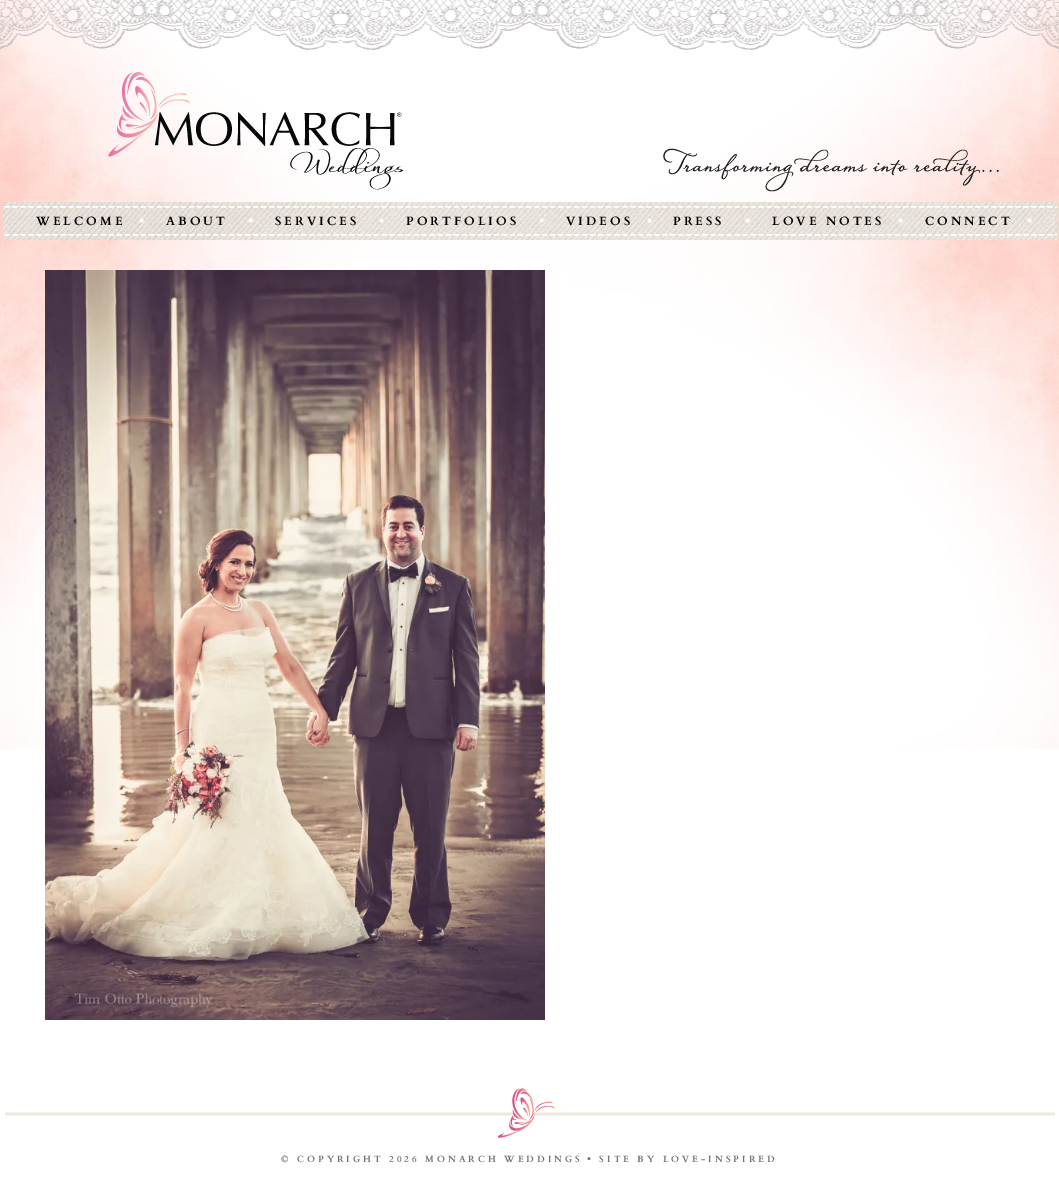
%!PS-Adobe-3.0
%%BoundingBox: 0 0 1059 1199
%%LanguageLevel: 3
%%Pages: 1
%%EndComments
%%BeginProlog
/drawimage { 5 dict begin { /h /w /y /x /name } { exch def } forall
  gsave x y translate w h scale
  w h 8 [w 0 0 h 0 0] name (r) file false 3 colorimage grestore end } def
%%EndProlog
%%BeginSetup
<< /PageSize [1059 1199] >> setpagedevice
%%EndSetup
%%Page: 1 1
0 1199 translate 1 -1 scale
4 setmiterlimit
1 setgray
0 0 1059 1199 rectfill
(images/1.raw) 0 0 1059 749 drawimage
(images/2.raw) 0 0 1059 50 drawimage
(images/3.raw) 108 72 295 118 drawimage
(images/4.raw) 663 148 336 44 drawimage
(images/5.raw) 3 202 1054 38 drawimage
(images/6.raw) 45 270 500 750 drawimage
(images/7.raw) 5 1088 1050 50 drawimage
/Cardo-Bold [12 0 0 -12 0 0] selectfont
0 setgray
36 225 moveto 3 0 (WELCOME) ashow
1 setgray
139 225 moveto 3 0 (•) ashow
0 setgray
166 225 moveto 3 0 (ABOUT) ashow
1 setgray
248 225 moveto 3 0 (•) ashow
0 setgray
275 225 moveto 3 0 (SERVICES) ashow
1 setgray
379 225 moveto 3 0 (•) ashow
0 setgray
406 225 moveto 3 0 (PORTFOLIOS) ashow
1 setgray
539 225 moveto 3 0 (•) ashow
0 setgray
566 225 moveto 3 0 (VIDEOS) ashow
1 setgray
647 225 moveto 3 0 (•) ashow
0 setgray
673 225 moveto 3 0 (PRESS) ashow
1 setgray
745 225 moveto 3 0 (•) ashow
0 setgray
772 225 moveto 3 0 (LOVE NOTES) ashow
1 setgray
898 225 moveto 3 0 (•) ashow
0 setgray
925 225 moveto 3 0 (CONNECT) ashow
1 setgray
1027 225 moveto 3 0 (•) ashow
/Cardo-Bold [9 0 0 -9 0 0] selectfont
0.463 0.435 0.427 setrgbcolor
281 1162 moveto 3 0 (© COPYRIGHT 2026 MONARCH WEDDINGS) ashow
587 1162 moveto 3 0 (• SITE BY LOVE-INSPIRED) ashow
showpage
%%EOF
